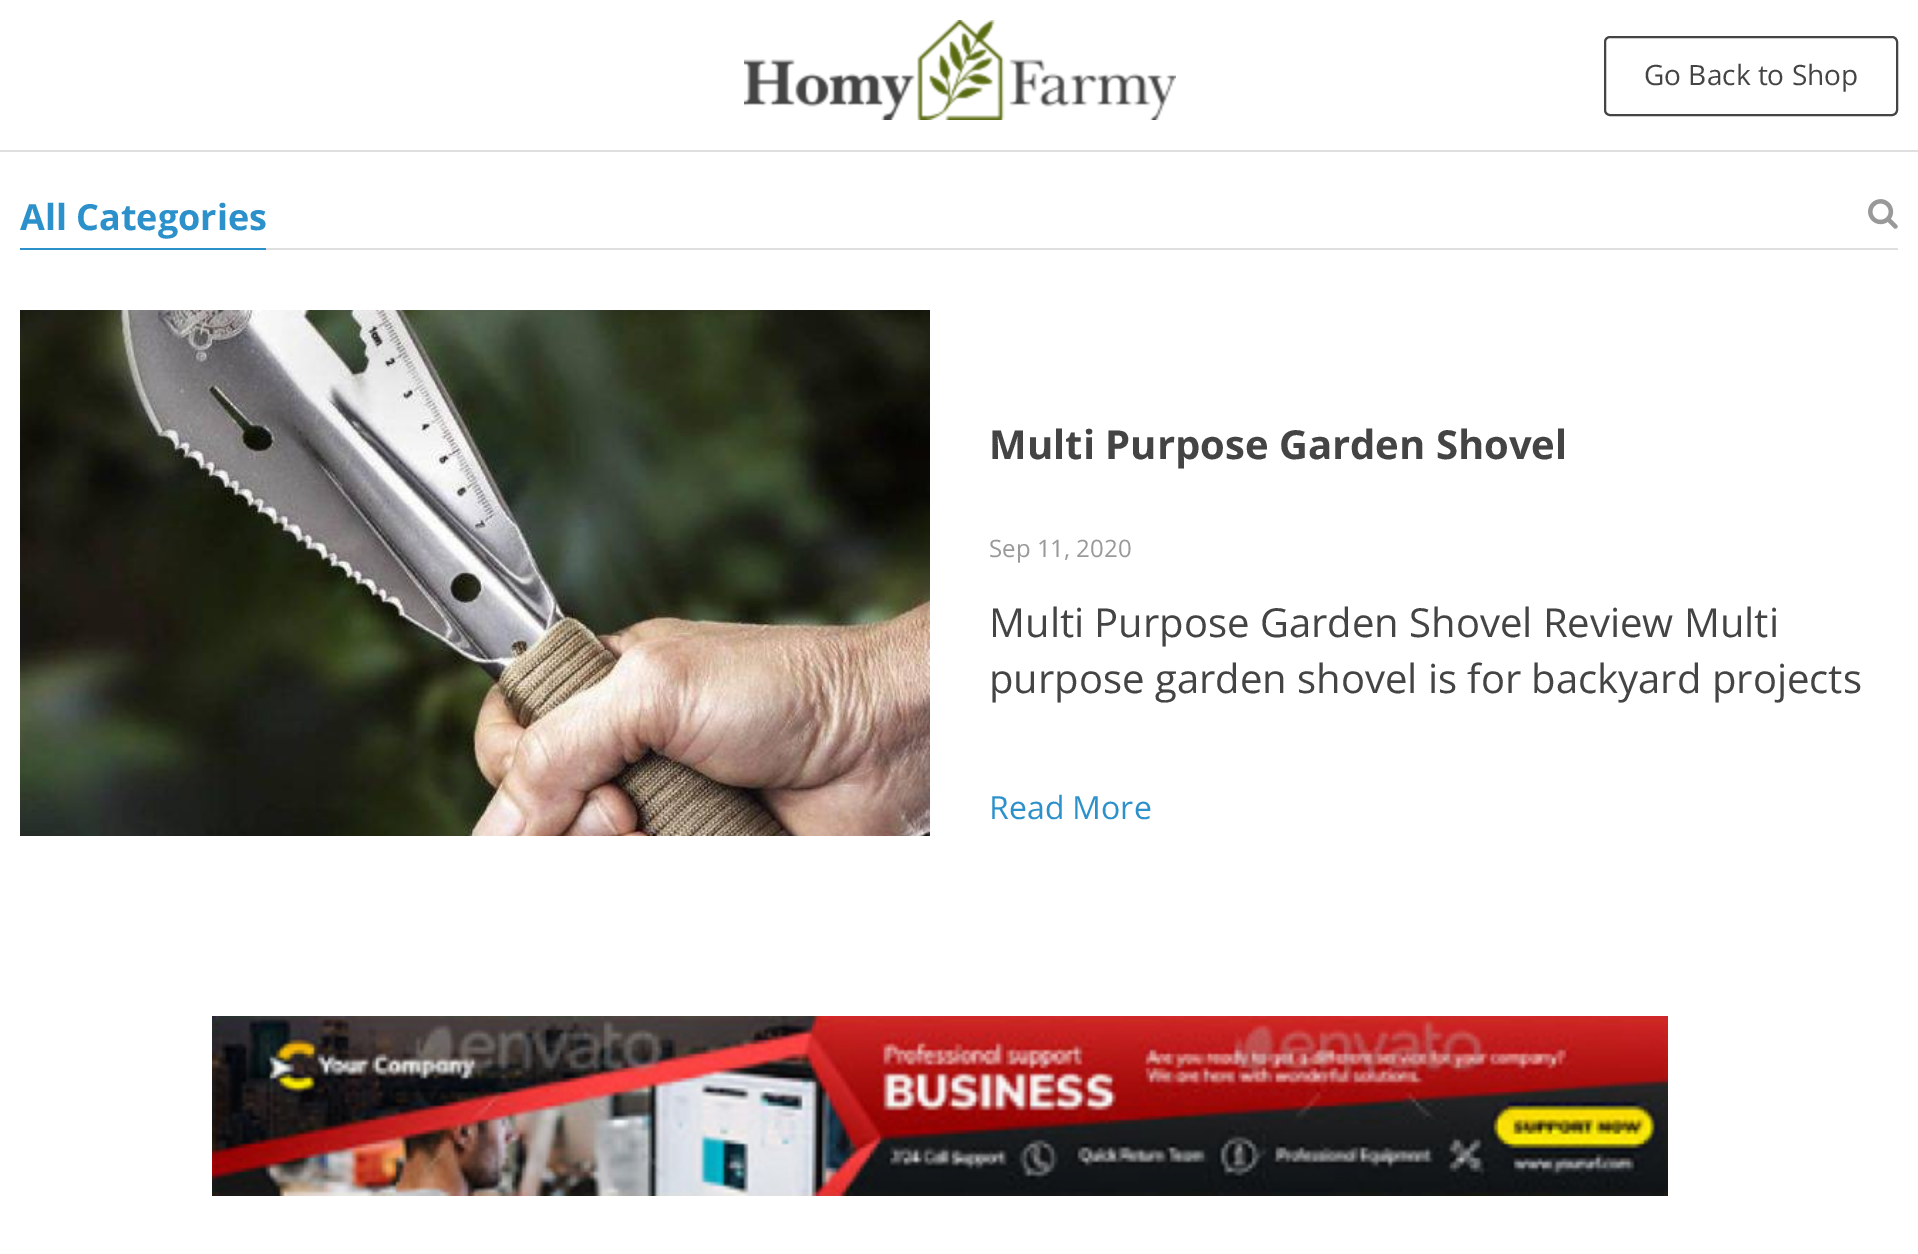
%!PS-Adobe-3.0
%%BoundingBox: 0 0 1918 1254
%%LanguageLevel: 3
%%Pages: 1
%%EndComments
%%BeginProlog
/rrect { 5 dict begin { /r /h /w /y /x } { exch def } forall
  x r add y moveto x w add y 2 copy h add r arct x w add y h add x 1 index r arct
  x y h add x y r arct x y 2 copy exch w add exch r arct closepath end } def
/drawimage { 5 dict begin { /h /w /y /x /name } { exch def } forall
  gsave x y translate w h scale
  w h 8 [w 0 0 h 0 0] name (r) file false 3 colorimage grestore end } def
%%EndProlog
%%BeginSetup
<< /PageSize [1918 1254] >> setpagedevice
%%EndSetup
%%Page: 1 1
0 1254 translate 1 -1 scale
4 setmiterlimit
1 setgray
0 0 1918 1254 rectfill
0.875 setgray
0 150 1918 2 rectfill
(images/1.raw) 744 20 432 100 drawimage
0.267 setgray
2 setlinewidth
1605 37 292 78 5 rrect stroke
0.875 setgray
266 248 1632 2 rectfill
0.173 0.569 0.796 setrgbcolor
20 248 246 2 rectfill
(images/2.raw) 1868 199 30 30 drawimage
(images/3.raw) 20 310 910 526 drawimage
(images/4.raw) 212 1016 1456 180 drawimage
/OpenSans-Regular [28 0 0 -28 0 0] selectfont
0.267 setgray
1644 85 moveto (Go Back to Shop) show
/OpenSans-Bold [36 0 0 -36 0 0] selectfont
0.173 0.569 0.796 setrgbcolor
20 230 moveto (All Categories) show
/OpenSans-Bold [40 0 0 -40 0 0] selectfont
0.267 setgray
989 459 moveto (Multi Purpose Garden Shovel) show
/OpenSans-Regular [24 0 0 -24 0 0] selectfont
0.6 setgray
989 557 moveto (Sep 11, 2020) show
/OpenSans-Regular [40 0 0 -40 0 0] selectfont
0.267 setgray
989 637 moveto (Multi Purpose Garden Shovel Review Multi) show
989 693 moveto (purpose garden shovel is for backyard projects) show
/OpenSans-Regular [32 0 0 -32 0 0] selectfont
0.173 0.569 0.796 setrgbcolor
989 819 moveto (Read More) show
showpage
%%EOF
